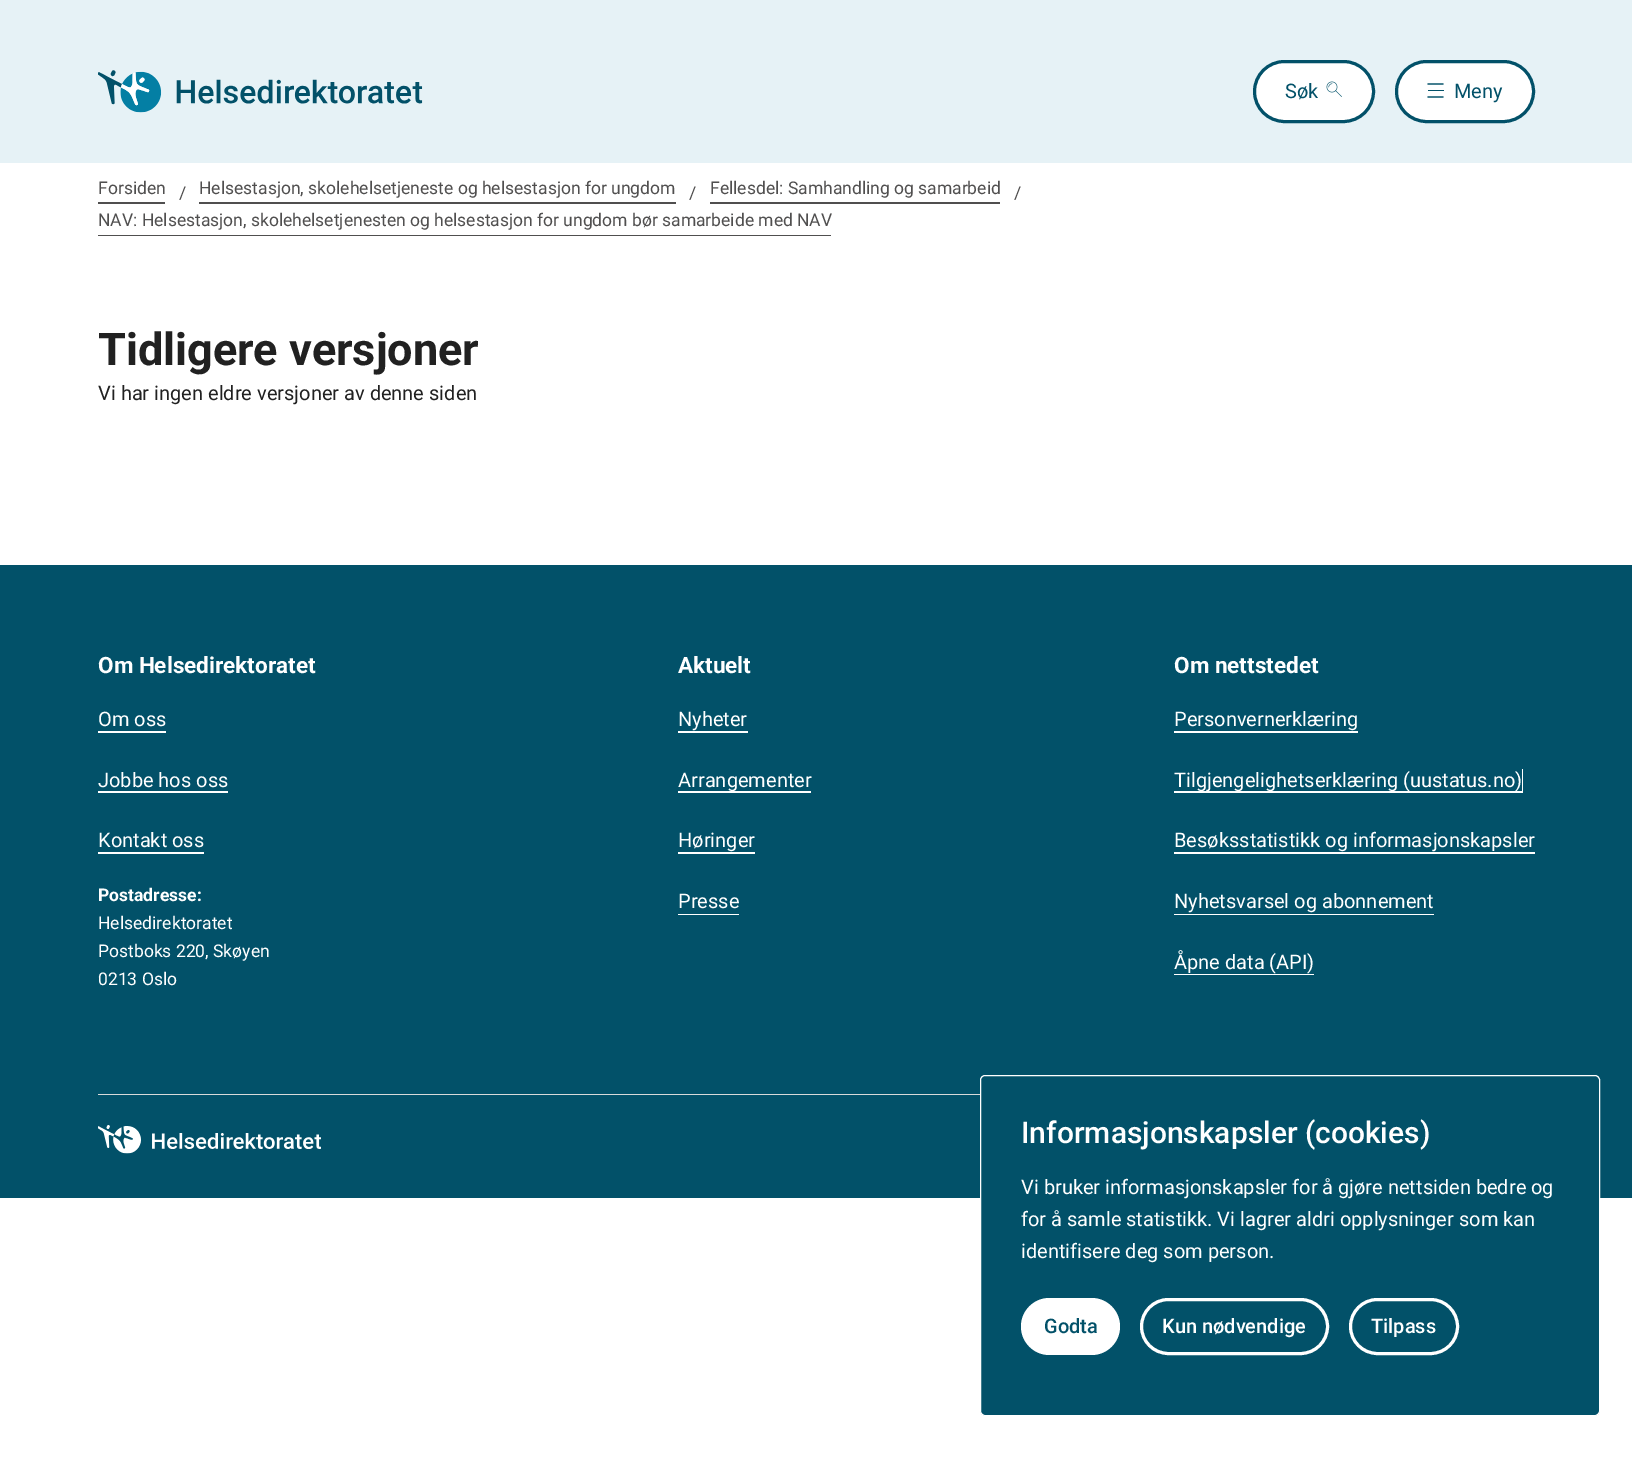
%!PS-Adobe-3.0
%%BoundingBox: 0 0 1632 1475
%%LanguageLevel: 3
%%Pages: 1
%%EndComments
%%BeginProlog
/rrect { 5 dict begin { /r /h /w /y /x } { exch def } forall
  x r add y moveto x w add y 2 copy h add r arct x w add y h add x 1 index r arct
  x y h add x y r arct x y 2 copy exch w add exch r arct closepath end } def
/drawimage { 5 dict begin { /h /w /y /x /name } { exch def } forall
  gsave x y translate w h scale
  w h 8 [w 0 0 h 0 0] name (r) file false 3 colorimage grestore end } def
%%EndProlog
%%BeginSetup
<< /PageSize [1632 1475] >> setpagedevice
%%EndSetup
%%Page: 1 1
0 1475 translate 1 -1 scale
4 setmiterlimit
1 setgray
0 0 1632 1475 rectfill
0.902 0.949 0.965 setrgbcolor
0 0 1632 163 rectfill
(images/1.raw) 98 70 325 43 drawimage
1 setgray
1254.5 61.5 119 60 30 rrect gsave fill grestore
0.008 0.318 0.412 setrgbcolor
3 setlinewidth
stroke
(images/2.raw) 1326 81 16 16 drawimage
1 setgray
1396.5 61.5 137 60 30 rrect gsave fill grestore
0.008 0.318 0.412 setrgbcolor
stroke
1.3 setlinewidth
newpath 1427.5 84 moveto 1443.5 84 lineto stroke
1428 90 16 1 rectfill
newpath 1427.5 97 moveto 1443.5 97 lineto stroke
0.314 0.31 0.31 setrgbcolor
98 202 67 2 rectfill
199 202 477 2 rectfill
710 202 290 2 rectfill
98 235 733 1 rectfill
0.008 0.318 0.412 setrgbcolor
0 565 1632 633 rectfill
1 setgray
98 731 68 2 rectfill
newpath 98 791 moveto 98 793 lineto 228 793 lineto 228 769 lineto 228 791 lineto closepath fill
newpath 98 852 moveto 98 854 lineto 204 854 lineto 204 830 lineto 204 852 lineto closepath fill
newpath 678 731 moveto 678 733 lineto 748 733 lineto 748 709 lineto 748 731 lineto closepath fill
678 791 133 2 rectfill
678 852 77 2 rectfill
newpath 678 914 moveto 678 915 lineto 739 915 lineto 739 891 lineto 739 914 lineto closepath fill
newpath 1174 731 moveto 1174 733 lineto 1358 733 lineto 1358 709 lineto 1358 731 lineto closepath fill
newpath 1174 791 moveto 1174 793 lineto 1523 793 lineto 1523 769 lineto 1522 769 lineto 1522 791 lineto closepath fill
1174 852 361 2 rectfill
newpath 1174 914 moveto 1174 915 lineto 1434 915 lineto 1434 891 lineto 1434 914 lineto closepath fill
newpath 1174 974 moveto 1174 975 lineto 1314 975 lineto 1314 951 lineto 1314 974 lineto closepath fill
0.847 0.855 0.855 setrgbcolor
98 1094 882 1 rectfill
(images/3.raw) 98 1125 223 29 drawimage
0.008 0.318 0.412 setrgbcolor
980.5 1075.5 619 340 4.5 rrect gsave fill grestore
1 setgray
1 setlinewidth
stroke
1021 1298 99 57 28.5 rrect fill
3 setlinewidth
1141.5 1299.5 186 54 27 rrect stroke
1350.5 1299.5 107 54 27 rrect stroke
/Roboto-Regular [20 0 0 -20 0 0] selectfont
0.008 0.318 0.412 setrgbcolor
1285 98 moveto (Søk) show
1454 98 moveto (Meny) show
/Roboto-Regular [17.5 0 0 -17.5 0 0] selectfont
0.314 0.31 0.31 setrgbcolor
98 194 moveto (Forsiden) show
179 199 moveto (/) show
199 194 moveto (Helsestasjon, skolehelsetjeneste og helsestasjon for ungdom) show
689 199 moveto (/) show
710 194 moveto (Fellesdel: Samhandling og samarbeid) show
1014 199 moveto (/) show
98 226 moveto (NAV: Helsestasjon, skolehelsetjenesten og helsestasjon for ungdom bør samarbeide med NAV) show
/Roboto-Bold [45 0 0 -45 0 0] selectfont
0.129 setgray
98 365 moveto (Tidligere versjoner) show
/Roboto-Regular [20 0 0 -20 0 0] selectfont
98 400 moveto (Vi har ingen eldre versjoner av denne siden) show
/Roboto-Bold [22.5 0 0 -22.5 0 0] selectfont
1 setgray
98 673 moveto (Om Helsedirektoratet) show
/Roboto-Regular [20 0 0 -20 0 0] selectfont
98 726 moveto (Om oss) show
98 787 moveto (Jobbe hos oss) show
98 847 moveto (Kontakt oss) show
/Roboto-Bold [17.5 0 0 -17.5 0 0] selectfont
98 901 moveto (Postadresse:) show
/Roboto-Regular [17.5 0 0 -17.5 0 0] selectfont
98 929 moveto (Helsedirektoratet) show
98 957 moveto (Postboks 220, Skøyen) show
98 985 moveto (0213 Oslo) show
/Roboto-Bold [22.5 0 0 -22.5 0 0] selectfont
678 673 moveto (Aktuelt) show
/Roboto-Regular [20 0 0 -20 0 0] selectfont
678 726 moveto (Nyheter) show
678 787 moveto (Arrangementer) show
678 847 moveto (Høringer) show
678 908 moveto (Presse) show
/Roboto-Bold [22.5 0 0 -22.5 0 0] selectfont
1174 673 moveto (Om nettstedet) show
/Roboto-Regular [20 0 0 -20 0 0] selectfont
1174 726 moveto (Personvernerklæring) show
1174 787 moveto (Tilgjengelighetserklæring \(uustatus.no\)) show
1174 847 moveto (Besøksstatistikk og informasjonskapsler) show
1174 908 moveto (Nyhetsvarsel og abonnement) show
1174 969 moveto (Åpne data \(API\)) show
/Roboto-Medium [30 0 0 -30 0 0] selectfont
1021 1143 moveto (Informasjonskapsler \(cookies\)) show
/Roboto-Regular [20 0 0 -20 0 0] selectfont
1021 1194 moveto (Vi bruker informasjonskapsler for å gjøre nettsiden bedre og) show
1021 1226 moveto (for å samle statistikk. Vi lagrer aldri opplysninger som kan) show
1021 1258 moveto (identifisere deg som person.) show
/Roboto-Medium [20 0 0 -20 0 0] selectfont
0.008 0.318 0.412 setrgbcolor
1044 1333 moveto (Godta) show
1 setgray
1162 1333 moveto (Kun nødvendige) show
1371 1333 moveto (Tilpass) show
showpage
%%EOF
